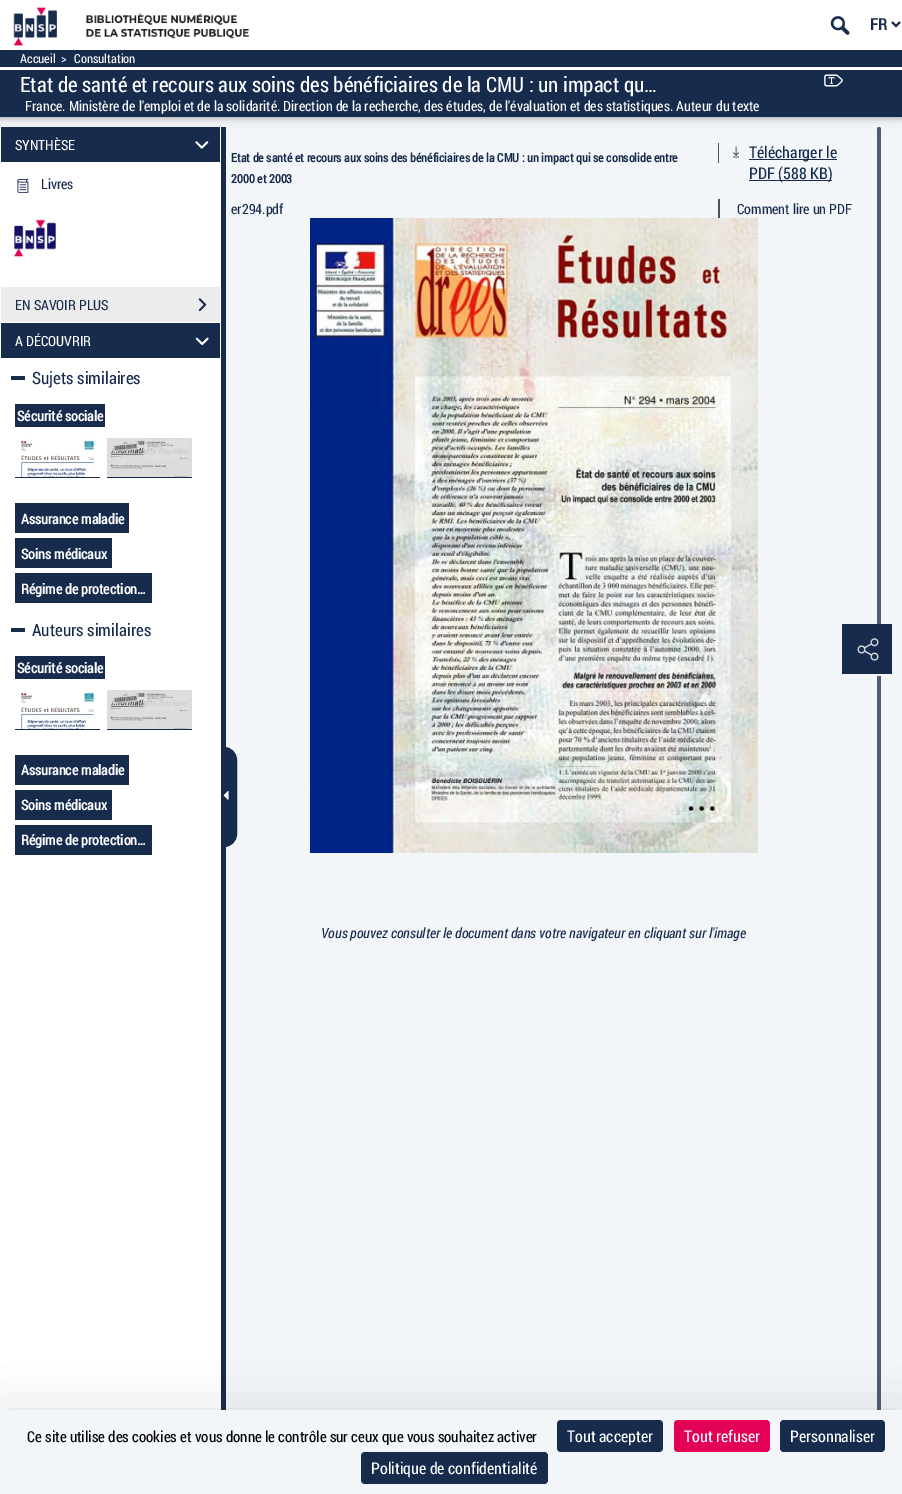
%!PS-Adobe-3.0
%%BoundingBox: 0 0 902 1494
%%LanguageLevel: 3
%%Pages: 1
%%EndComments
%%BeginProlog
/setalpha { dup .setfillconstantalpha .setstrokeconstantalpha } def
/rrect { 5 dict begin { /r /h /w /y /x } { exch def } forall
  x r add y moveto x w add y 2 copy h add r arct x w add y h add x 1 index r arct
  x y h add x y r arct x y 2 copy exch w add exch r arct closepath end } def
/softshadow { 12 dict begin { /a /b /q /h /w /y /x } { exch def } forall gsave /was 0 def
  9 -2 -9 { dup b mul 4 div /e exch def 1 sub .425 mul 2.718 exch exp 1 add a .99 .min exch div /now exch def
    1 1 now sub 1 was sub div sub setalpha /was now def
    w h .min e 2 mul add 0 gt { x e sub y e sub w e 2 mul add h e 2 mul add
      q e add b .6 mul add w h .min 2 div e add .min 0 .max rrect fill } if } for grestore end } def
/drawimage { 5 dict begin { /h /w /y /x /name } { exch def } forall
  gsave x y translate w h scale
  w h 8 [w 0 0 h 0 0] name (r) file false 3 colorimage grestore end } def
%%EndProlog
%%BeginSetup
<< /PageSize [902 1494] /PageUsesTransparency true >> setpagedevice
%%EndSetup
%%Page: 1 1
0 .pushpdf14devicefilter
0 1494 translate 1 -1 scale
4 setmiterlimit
0.953 0.965 0.976 setrgbcolor
0 0 902 1494 rectfill
0.306 0.369 0.471 setrgbcolor
877 127 4 1347 2 rrect fill
0 setgray
0 52 902 67 0 5 0.12 softshadow
0 52 902 67 0 2 0.16 softshadow
1 setgray
0 0 902 50 rectfill
(images/1.raw) 13 7 236 39 drawimage
(images/2.raw) 830 16 20 19 drawimage
0.09 0.169 0.302 setrgbcolor
2 setlinewidth
newpath 892 22 moveto 896 26 lineto 900 22 lineto stroke
0 50 902 67 rectfill
1 setgray
0 67 902 3 rectfill
(images/3.raw) 824 74 19 13 drawimage
0.09 0.169 0.302 setrgbcolor
221 127 5 1283 rectfill
1 setgray
0 127 221 1283 rectfill
0.09 0.169 0.302 setrgbcolor
1 127 219 35 rectfill
(images/4.raw) 195 141 14 8 drawimage
(images/5.raw) 17 178 12 15 drawimage
(images/6.raw) 14 219 42 38 drawimage
0.925 setgray
1 287 219 35 rectfill
(images/7.raw) 198 298 9 14 drawimage
0.09 0.169 0.302 setrgbcolor
1 323 219 35 rectfill
(images/8.raw) 195 337 14 9 drawimage
11 376 14 4 rectfill
15 404 90 23 rectfill
(images/9.raw) 20 438 77 39 drawimage
15 477 85 1 rectfill
(images/10.raw) 107 438 85 39 drawimage
107 477 85 1 rectfill
15 503 114 30 rectfill
15 538 97 30 rectfill
15 573 137 30 rectfill
11 628 14 4 rectfill
15 656 90 23 rectfill
(images/9.raw) 20 690 77 39 drawimage
15 729 85 1 rectfill
(images/10.raw) 107 690 85 39 drawimage
107 729 85 1 rectfill
15 755 114 30 rectfill
15 790 97 30 rectfill
15 825 137 30 rectfill
newpath 224.5 747.5 moveto 224 747.5 lineto 231 747.5 236.5 753 236.5 760 curveto 236.5 834 lineto 236.5 841 231 846.5 224 846.5 curveto 224.5 846.5 lineto closepath gsave fill grestore
1 setlinewidth
stroke
(images/11.raw) 223 791 6 9 drawimage
0.322 setgray
718 143 1 20 rectfill
(images/12.raw) 733 146 6 12 drawimage
0.09 0.169 0.302 setrgbcolor
749 159 88 1 rectfill
749 180 83 1 rectfill
0.322 setgray
718 199 2 20 rectfill
(images/13.raw) 310 218 448 635 drawimage
0.09 0.169 0.302 setrgbcolor
842 624 50 50 rectfill
(images/14.raw) 857 638 22 23 drawimage
0.953 0.965 0.976 setrgbcolor
877 674 4 2 rectfill
0 setgray
0 1430 902 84 0 30 0.25 softshadow
0.953 0.965 0.976 setrgbcolor
0 1410 902 84 rectfill
0.09 0.169 0.302 setrgbcolor
557 1420 106 32 4 rrect fill
0.89 0 0.341 setrgbcolor
674 1420 96 32 4 rrect fill
0.09 0.169 0.302 setrgbcolor
780 1420 105 32 4 rrect fill
361 1452 187 32 4 rrect fill
/RobotoCondensed-Bold [16 0 0 -16 0 0] selectfont
870 30 moveto (FR) show
/RobotoCondensed-Regular [12.5 0 0 -12.5 0 0] selectfont
1 setgray
20 63 moveto (Accueil) show
61 63 moveto (>) show
74 63 moveto (Consultation) show
/RobotoCondensed-Regular [21 0 0 -21 0 0] selectfont
20 92 moveto (Etat de santé et recours aux soins des bénéficiaires de la CMU : un impact qu…) show
/RobotoCondensed-Regular [14 0 0 -14 0 0] selectfont
25 111 moveto (France. Ministère de l'emploi et de la solidarité. Direction de la recherche, des études, de l'évaluation et des statistiques. Auteur du texte) show
15 150 moveto (SYNTHÈSE) show
0.09 0.169 0.302 setrgbcolor
41 189 moveto (Livres) show
15 310 moveto (EN SAVOIR PLUS) show
1 setgray
15 346 moveto (A DÉCOUVRIR) show
/RobotoCondensed-Regular [17 0 0 -17 0 0] selectfont
0.09 0.169 0.302 setrgbcolor
32 384 moveto (Sujets similaires) show
/RobotoCondensed-Bold [14 0 0 -14 0 0] selectfont
1 setgray
17 421 moveto (Sécurité sociale) show
21 524 moveto (Assurance maladie) show
21 559 moveto (Soins médicaux) show
21 594 moveto (Régime de protection…) show
/RobotoCondensed-Regular [17 0 0 -17 0 0] selectfont
0.09 0.169 0.302 setrgbcolor
32 636 moveto (Auteurs similaires) show
/RobotoCondensed-Bold [14 0 0 -14 0 0] selectfont
1 setgray
17 673 moveto (Sécurité sociale) show
21 775 moveto (Assurance maladie) show
21 810 moveto (Soins médicaux) show
21 845 moveto (Régime de protection…) show
/RobotoCondensed-Bold [12 0 0 -12 0 0] selectfont
0.09 0.169 0.302 setrgbcolor
231 162 moveto (Etat de santé et recours aux soins des bénéficiaires de la CMU : un impact qui se consolide entre) show
231 183 moveto (2000 et 2003) show
/RobotoCondensed-Regular [14 0 0 -14 0 0] selectfont
231 214 moveto (er294.pdf) show
/RobotoCondensed-Regular [16 0 0 -16 0 0] selectfont
749 158 moveto (Télécharger le) show
749 179 moveto (PDF \(588 KB\)) show
/RobotoCondensed-Regular [14 0 0 -14 0 0] selectfont
737 214 moveto (Comment lire un PDF) show
/RobotoCondensed-Italic [14 0 0 -14 0 0] selectfont
321 938 moveto (Vous pouvez consulter le document dans votre navigateur en cliquant sur l'image) show
/RobotoCondensed-Regular [15 0 0 -15 0 0] selectfont
0 setgray
27 1442 moveto (Ce site utilise des cookies et vous donne le contrôle sur ceux que vous souhaitez activer) show
/RobotoCondensed-Regular [16 0 0 -16 0 0] selectfont
1 setgray
567 1442 moveto (Tout accepter) show
684 1442 moveto (Tout refuser) show
790 1442 moveto (Personnaliser) show
371 1474 moveto (Politique de confidentialité) show
.poppdf14devicefilter showpage
%%EOF
